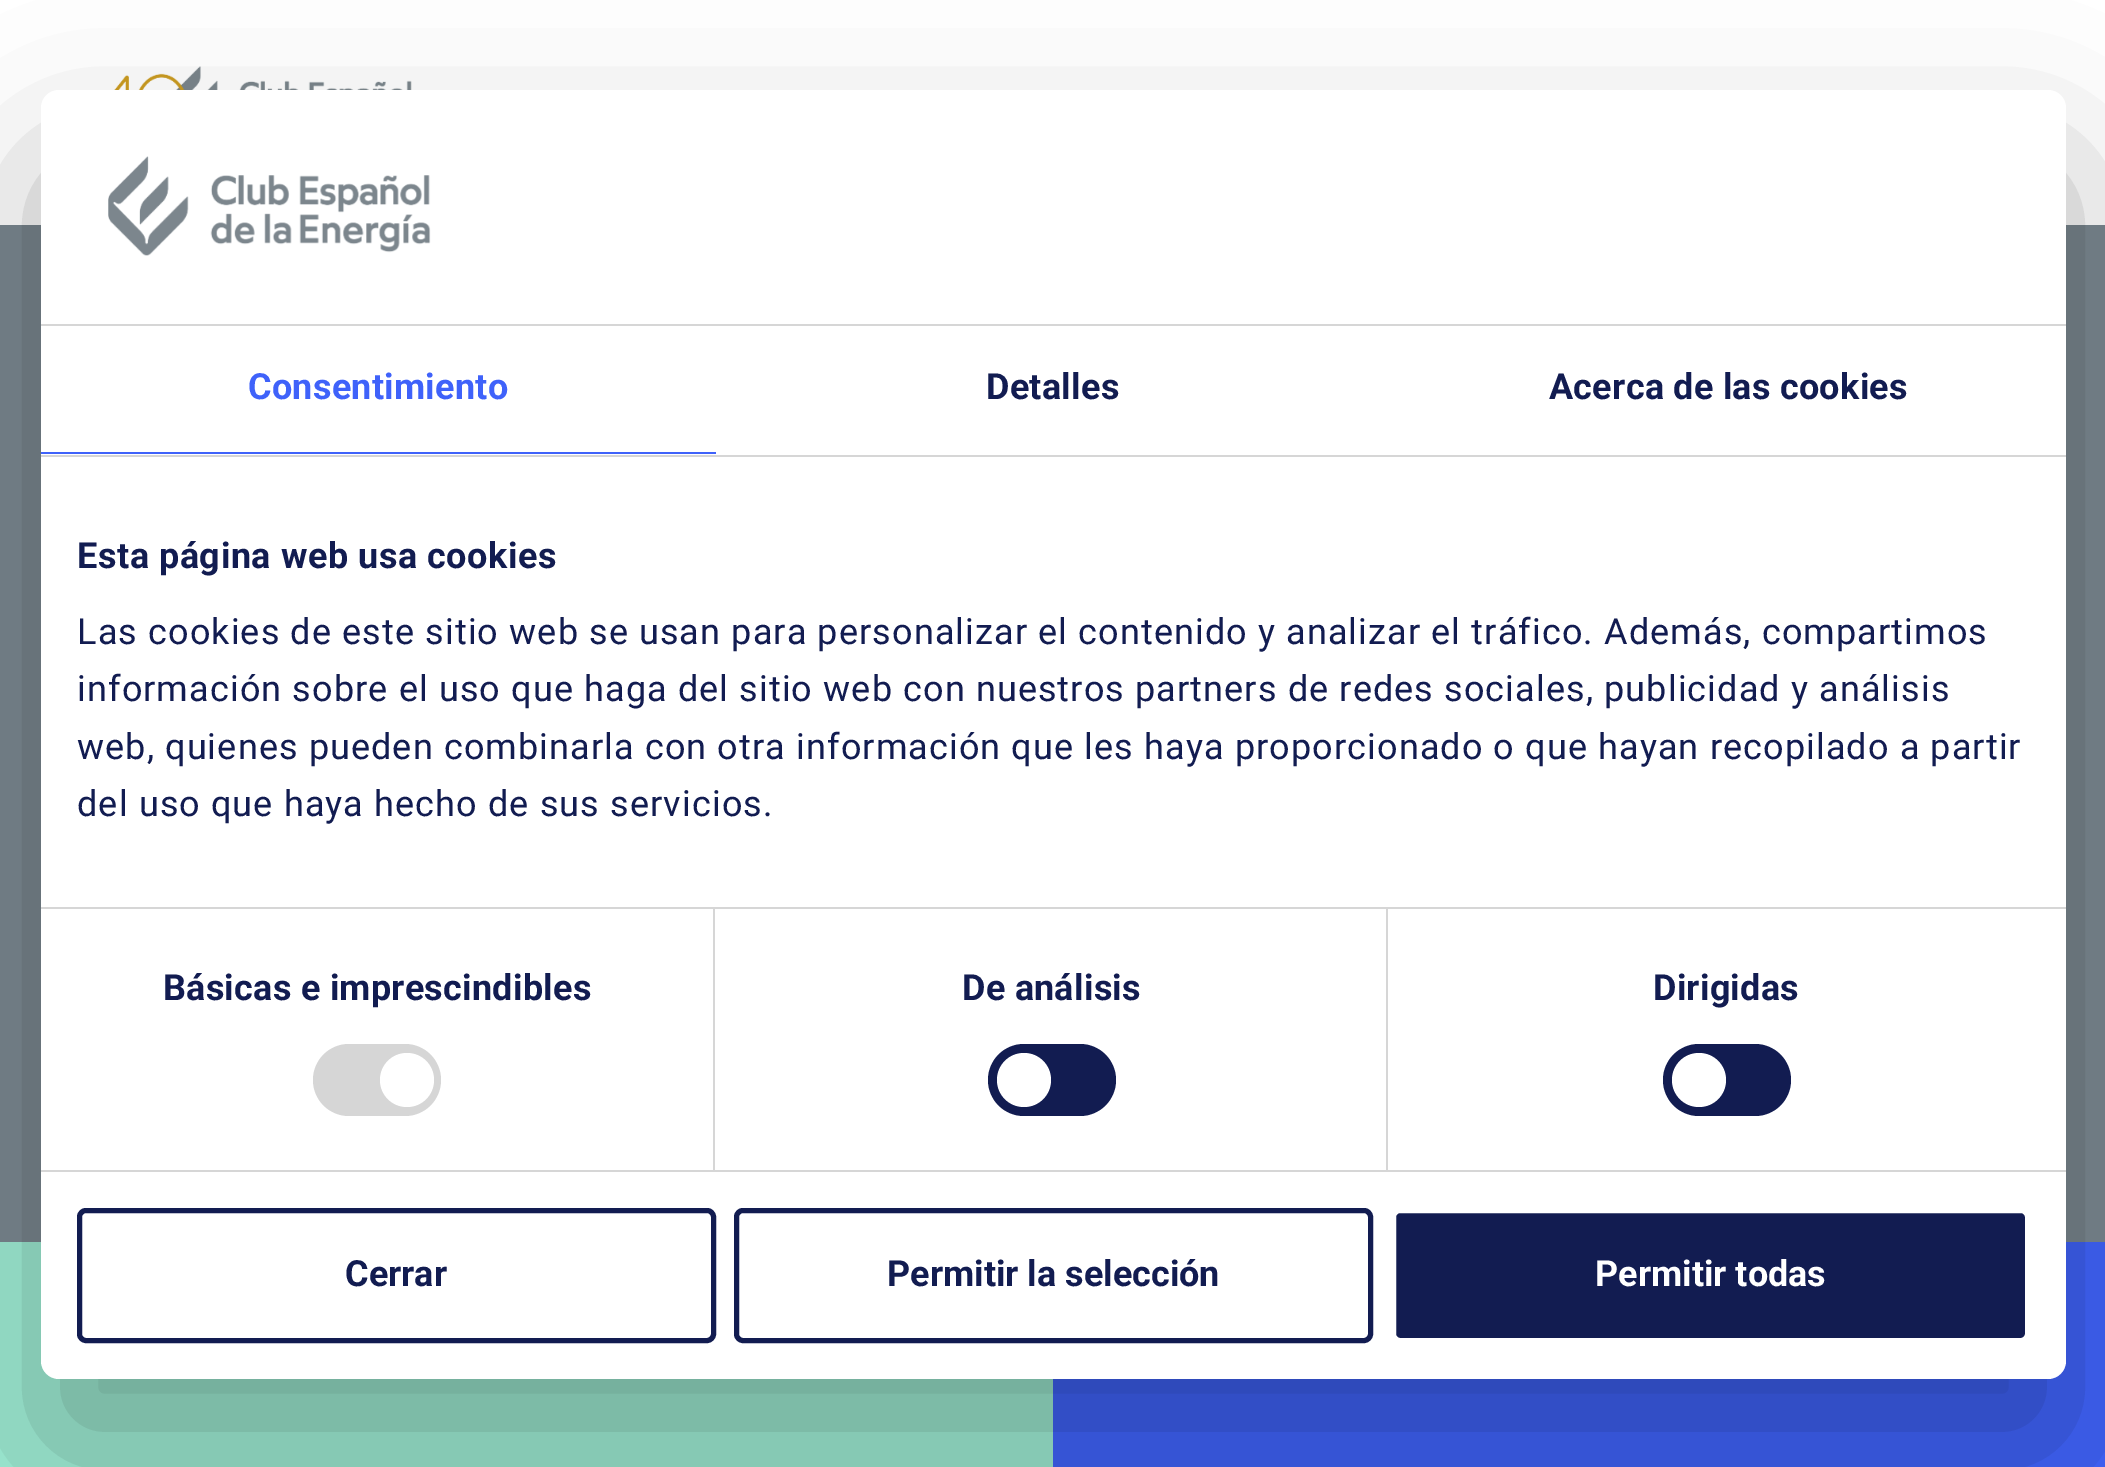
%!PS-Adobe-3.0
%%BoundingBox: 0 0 2105 1467
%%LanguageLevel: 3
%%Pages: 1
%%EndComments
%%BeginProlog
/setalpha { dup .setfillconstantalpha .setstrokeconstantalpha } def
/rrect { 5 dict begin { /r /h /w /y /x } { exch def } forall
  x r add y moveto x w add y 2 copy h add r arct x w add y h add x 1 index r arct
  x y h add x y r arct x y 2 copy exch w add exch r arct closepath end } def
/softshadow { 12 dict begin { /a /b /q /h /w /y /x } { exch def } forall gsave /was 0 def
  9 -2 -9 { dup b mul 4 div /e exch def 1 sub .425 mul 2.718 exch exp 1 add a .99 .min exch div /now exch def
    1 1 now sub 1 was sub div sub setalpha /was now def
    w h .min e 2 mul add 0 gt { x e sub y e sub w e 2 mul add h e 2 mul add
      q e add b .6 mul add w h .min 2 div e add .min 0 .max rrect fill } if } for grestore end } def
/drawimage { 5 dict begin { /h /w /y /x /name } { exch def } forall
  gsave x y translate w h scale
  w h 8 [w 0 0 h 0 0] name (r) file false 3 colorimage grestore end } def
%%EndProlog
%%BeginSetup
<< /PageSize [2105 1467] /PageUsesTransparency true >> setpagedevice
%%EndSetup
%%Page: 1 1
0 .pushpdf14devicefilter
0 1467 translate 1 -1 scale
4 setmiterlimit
0.478 0.529 0.561 setrgbcolor
0 0 2105 1467 rectfill
1 setgray
0 0 2105 225 rectfill
(images/1.raw) 114 66 298 24 drawimage
0.62 0.925 0.831 setrgbcolor
0 1242 1053 225 rectfill
0.247 0.384 0.98 setrgbcolor
1053 1242 1052 225 rectfill
0 setgray
41 162 2025 1289 18 76.5 0.3 softshadow
1 setgray
41 90 2025 1289 18 rrect fill
0.839 setgray
41 324 2025 2 rectfill
(images/2.raw) 108 156 323 100 drawimage
41 455 2025 2 rectfill
0.247 0.384 0.98 setrgbcolor
41 452 675 2 rectfill
0.839 setgray
41 907 2025 2 rectfill
41 1170 2025 2 rectfill
713 909 2 261 rectfill
313 1044 128 72 36 rrect fill
1 setgray
newpath 407 1080 27 0 360 arc closepath fill
0.839 setgray
1386 909 2 261 rectfill
0.071 0.11 0.318 setrgbcolor
988 1044 128 72 36 rrect fill
1 setgray
newpath 1024 1080 27 0 360 arc closepath fill
0.071 0.11 0.318 setrgbcolor
1663 1044 128 72 36 rrect fill
1 setgray
newpath 1699 1080 27 0 360 arc closepath fill
0.071 0.11 0.318 setrgbcolor
5 setlinewidth
79.5 1210.5 634 130 6.5 rrect stroke
736.5 1210.5 634 130 6.5 rrect stroke
1393.5 1210.5 634 130 6.5 rrect gsave fill grestore
1 setgray
stroke
/Roboto-Bold [36 0 0 -36 0 0] selectfont
0.247 0.384 0.98 setrgbcolor
248 399 moveto 0.25 0 (Consentimiento) ashow
0.071 0.11 0.318 setrgbcolor
986 399 moveto 0.25 0 (Detalles) ashow
1549 399 moveto 0.25 0 (Acerca de las cookies) ashow
77 568 moveto 0.55 0 (Esta página web usa cookies) ashow
/Roboto-Regular [36 0 0 -36 0 0] selectfont
77 644 moveto 1.12 0 (Las cookies de este sitio web se usan para personalizar el contenido y analizar el tráfico. Además, compartimos) ashow
77 701 moveto 1.12 0 (información sobre el uso que haga del sitio web con nuestros partners de redes sociales, publicidad y análisis) ashow
77 759 moveto 1.12 0 (web, quienes pueden combinarla con otra información que les haya proporcionado o que hayan recopilado a partir) ashow
77 816 moveto 1.12 0 (del uso que haya hecho de sus servicios.) ashow
/Roboto-Bold [36 0 0 -36 0 0] selectfont
163 1000 moveto 0.25 0 (Básicas e imprescindibles) ashow
962 1000 moveto 0.25 0 (De análisis) ashow
1653 1000 moveto 0.25 0 (Dirigidas) ashow
345 1286 moveto (Cerrar) show
887 1286 moveto (Permitir la selección) show
1 setgray
1595 1286 moveto (Permitir todas) show
.poppdf14devicefilter showpage
%%EOF
